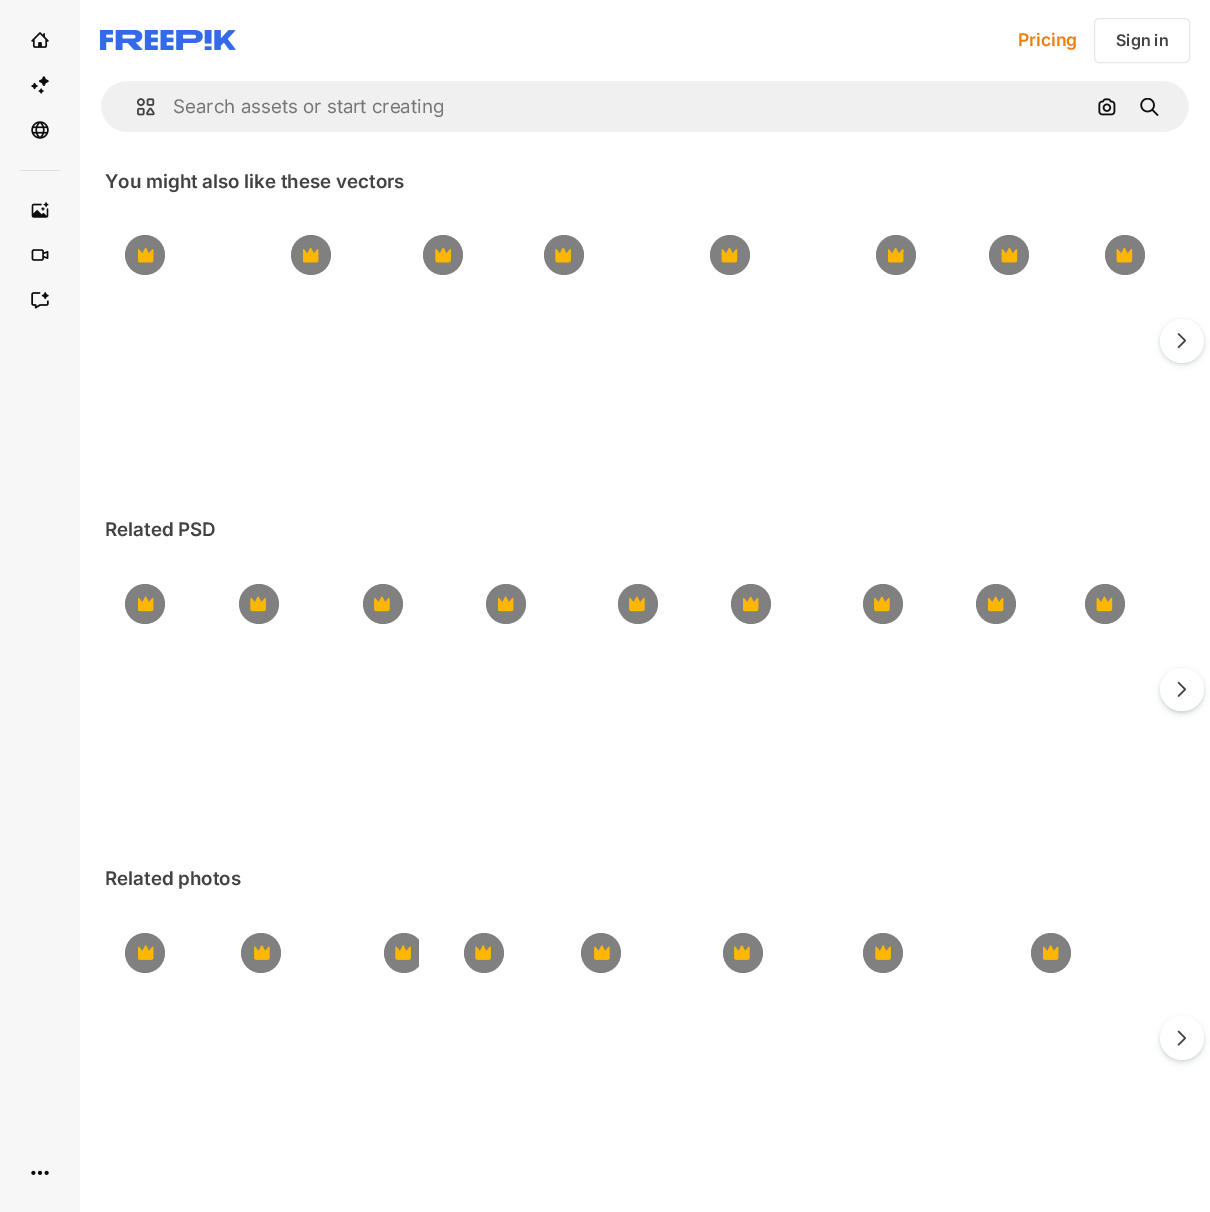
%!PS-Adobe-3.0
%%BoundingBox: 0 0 1210 1212
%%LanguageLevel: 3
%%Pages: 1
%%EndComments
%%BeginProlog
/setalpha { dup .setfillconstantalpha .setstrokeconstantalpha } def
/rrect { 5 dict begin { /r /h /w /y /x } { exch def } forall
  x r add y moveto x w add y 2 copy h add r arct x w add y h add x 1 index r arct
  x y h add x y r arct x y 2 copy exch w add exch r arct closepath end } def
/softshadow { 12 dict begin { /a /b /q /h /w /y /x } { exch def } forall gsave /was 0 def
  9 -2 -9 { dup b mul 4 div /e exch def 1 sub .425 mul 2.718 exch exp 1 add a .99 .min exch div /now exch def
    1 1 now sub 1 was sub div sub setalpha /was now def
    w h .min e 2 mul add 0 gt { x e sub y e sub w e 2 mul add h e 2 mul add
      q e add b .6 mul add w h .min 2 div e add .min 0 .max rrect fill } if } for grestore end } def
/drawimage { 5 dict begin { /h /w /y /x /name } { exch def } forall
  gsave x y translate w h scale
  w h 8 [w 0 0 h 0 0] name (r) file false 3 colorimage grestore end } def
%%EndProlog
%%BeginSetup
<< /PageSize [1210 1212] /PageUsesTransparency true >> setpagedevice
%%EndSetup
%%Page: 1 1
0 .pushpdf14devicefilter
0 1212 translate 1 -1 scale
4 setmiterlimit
1 setgray
0 0 1210 1212 rectfill
0.969 setgray
0 0 80 1212 rectfill
(images/1.raw) 31 32 18 16 drawimage
(images/2.raw) 31 76 18 18 drawimage
(images/3.raw) 31 121 18 18 drawimage
0.878 setgray
20 170 40 1 rectfill
(images/4.raw) 31 202 18 16 drawimage
(images/5.raw) 31 249 18 12 drawimage
(images/6.raw) 31 292 18 17 drawimage
(images/7.raw) 31 1170 18 5 drawimage
(images/8.raw) 100 30 136 20 drawimage
0.906 setgray
1094.5 18.5 95 44 4.5 rrect stroke
0.941 setgray
100.5 80.5 1089 52 26 rrect gsave fill grestore
1 setgray
stroke
(images/9.raw) 136 98 19 18 drawimage
(images/10.raw) 1098 98 18 18 drawimage
(images/11.raw) 1140 98 19 18 drawimage
0.502 setgray
newpath 145 255 20 0 360 arc closepath fill
(images/12.raw) 138 248 16 15 drawimage
newpath 311 255 20 0 360 arc closepath fill
(images/12.raw) 303 248 16 15 drawimage
newpath 443 255 20 0 360 arc closepath fill
(images/13.raw) 435 248 16 15 drawimage
newpath 564 255 20 0 360 arc closepath fill
(images/13.raw) 555 248 16 15 drawimage
newpath 730 255 20 0 360 arc closepath fill
(images/14.raw) 721 248 17 15 drawimage
newpath 896 255 20 0 360 arc closepath fill
(images/12.raw) 888 248 16 15 drawimage
newpath 1009 255 20 0 360 arc closepath fill
(images/14.raw) 1001 248 17 15 drawimage
newpath 1125 255 20 0 360 arc closepath fill
(images/14.raw) 1116 248 17 15 drawimage
0.216 0.286 0.341 setrgbcolor
1160 321 44 44 22 3 0.15 softshadow
1160 320 44 44 22 1 0.1 softshadow
1 setgray
newpath 1182 341 22 0 360 arc closepath fill
(images/15.raw) 1177 333 10 16 drawimage
0.502 setgray
newpath 145 604 20 0 360 arc closepath fill
(images/16.raw) 138 596 16 16 drawimage
newpath 259 604 20 0 360 arc closepath fill
(images/17.raw) 250 596 16 16 drawimage
newpath 383 604 20 0 360 arc closepath fill
(images/18.raw) 374 596 16 16 drawimage
newpath 506 604 20 0 360 arc closepath fill
(images/16.raw) 498 596 16 16 drawimage
newpath 638 604 20 0 360 arc closepath fill
(images/18.raw) 629 596 16 16 drawimage
newpath 751 604 20 0 360 arc closepath fill
(images/16.raw) 743 596 16 16 drawimage
newpath 883 604 20 0 360 arc closepath fill
(images/18.raw) 874 596 16 16 drawimage
newpath 996 604 20 0 360 arc closepath fill
(images/16.raw) 988 596 16 16 drawimage
newpath 1105 604 20 0 360 arc closepath fill
(images/19.raw) 1096 596 17 16 drawimage
0.216 0.286 0.341 setrgbcolor
1160 670 44 44 22 3 0.15 softshadow
1160 669 44 44 22 1 0.1 softshadow
1 setgray
1160 668 44 43 21.5 rrect fill
(images/20.raw) 1177 681 10 16 drawimage
0.502 setgray
newpath 145 953 20 0 360 arc closepath fill
(images/21.raw) 138 945 16 15 drawimage
newpath 261 953 20 0 360 arc closepath fill
(images/22.raw) 254 945 16 15 drawimage
gsave
364 913 55 250 20 rrect clip newpath
newpath 404 953 20 0 360 arc closepath fill
grestore
(images/23.raw) 395 945 16 15 drawimage
newpath 484 953 20 0 360 arc closepath fill
(images/23.raw) 475 945 16 15 drawimage
newpath 601 953 20 0 360 arc closepath fill
(images/22.raw) 594 945 16 15 drawimage
newpath 743 953 20 0 360 arc closepath fill
(images/22.raw) 734 945 16 15 drawimage
newpath 883 953 20 0 360 arc closepath fill
(images/23.raw) 875 945 16 15 drawimage
newpath 1051 953 20 0 360 arc closepath fill
(images/21.raw) 1043 945 16 15 drawimage
0.216 0.286 0.341 setrgbcolor
1160 1019 44 44 22 3 0.15 softshadow
1160 1018 44 43 21.5 1 0.1 softshadow
1 setgray
newpath 1182 1038 22 0 360 arc closepath fill
(images/24.raw) 1177 1030 10 16 drawimage
/Inter-SemiBold [17.5 0 0 -17.5 0 0] selectfont
0.918 0.494 0.067 setrgbcolor
1018 46 moveto (Pricing) show
/Inter-SemiBold [16 0 0 -16 0 0] selectfont
0.259 setgray
1116 46 moveto (Sign in) show
/Inter-Regular [18.75 0 0 -18.75 0 0] selectfont
0.467 setgray
173 113 moveto (Search assets or start creating) show
/Inter-SemiBold [18.75 0 0 -18.75 0 0] selectfont
0.259 setgray
105 188 moveto (You might also like these vectors) show
105 536 moveto (Related PSD) show
105 885 moveto (Related photos) show
.poppdf14devicefilter showpage
%%EOF
